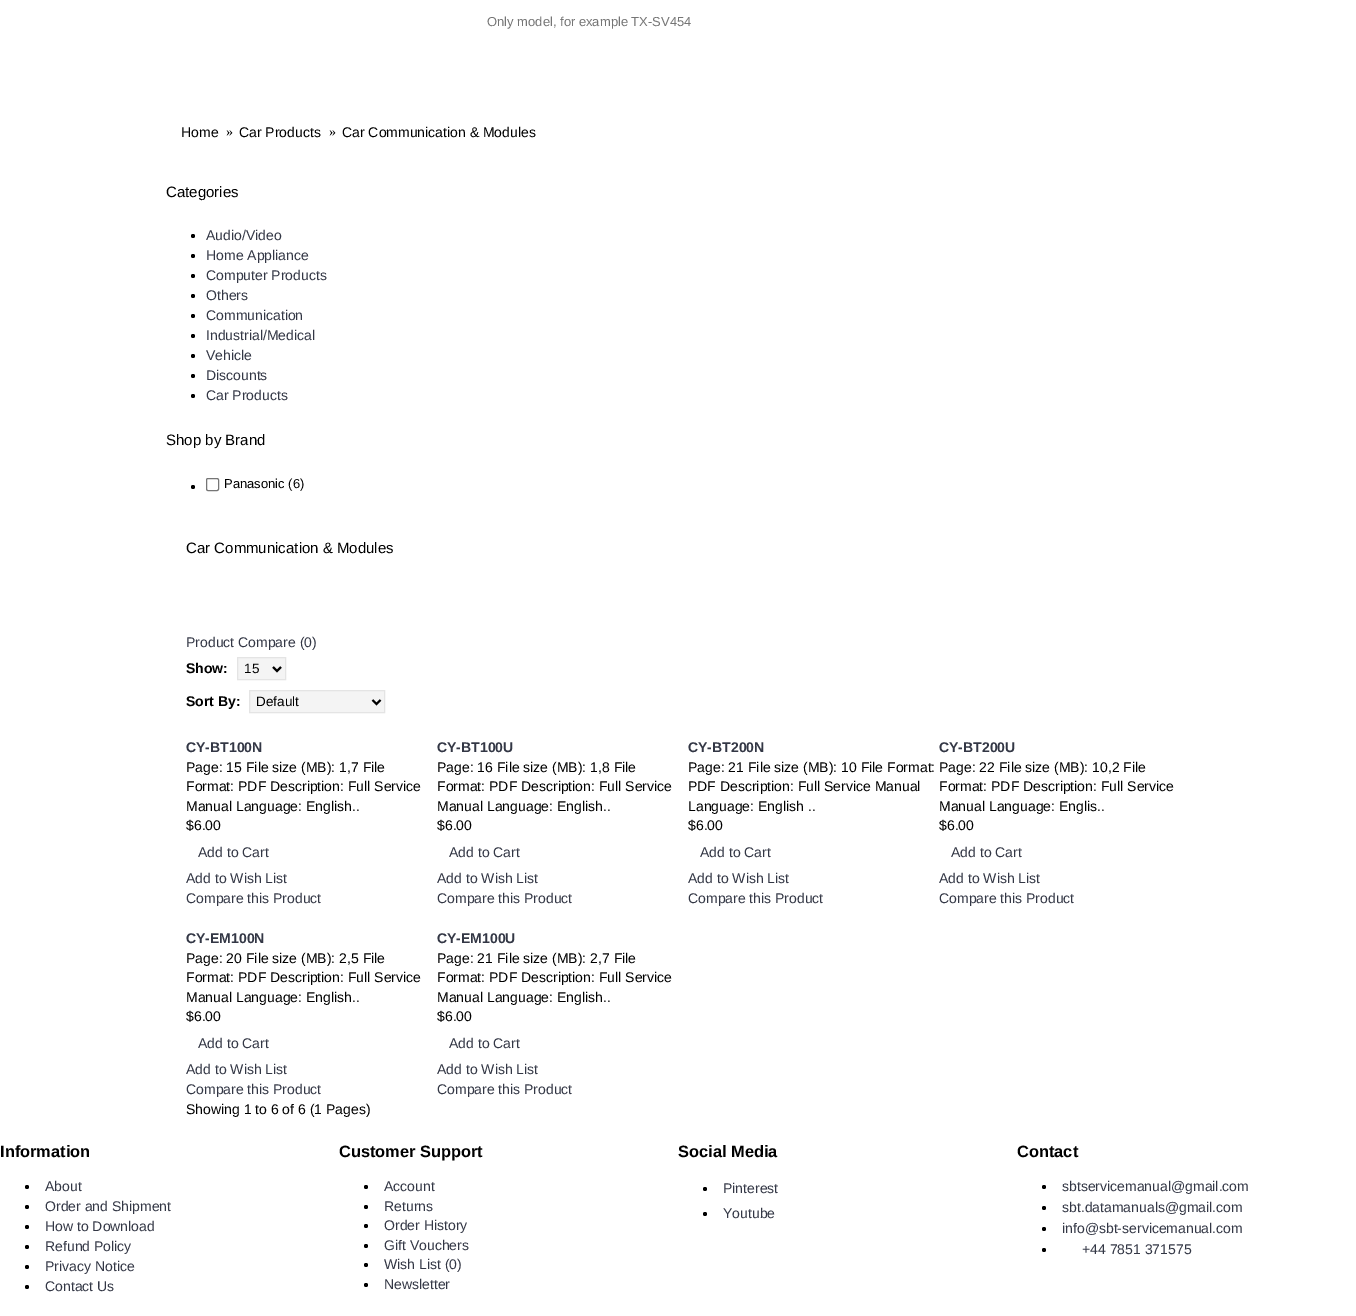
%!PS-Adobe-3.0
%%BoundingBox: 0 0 1356 1316
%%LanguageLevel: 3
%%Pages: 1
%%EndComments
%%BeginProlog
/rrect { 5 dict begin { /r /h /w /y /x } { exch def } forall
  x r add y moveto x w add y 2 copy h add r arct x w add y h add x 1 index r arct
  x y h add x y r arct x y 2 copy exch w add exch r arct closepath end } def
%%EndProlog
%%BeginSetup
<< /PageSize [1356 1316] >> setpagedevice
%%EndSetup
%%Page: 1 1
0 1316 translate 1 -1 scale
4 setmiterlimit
1 setgray
0 0 1356 1316 rectfill
0 setgray
newpath 193 236 2 0 360 arc closepath fill
newpath 193 256 2 0 360 arc closepath fill
newpath 193 276 2 0 360 arc closepath fill
newpath 193 296 2 0 360 arc closepath fill
newpath 193 316 2 0 360 arc closepath fill
newpath 193 336 2 0 360 arc closepath fill
newpath 193 356 2 0 360 arc closepath fill
newpath 193 376 2 0 360 arc closepath fill
newpath 193 396 2 0 360 arc closepath fill
newpath 193 487 2 0 360 arc closepath fill
0.463 setgray
206.5 478.5 12 12 1.5 rrect stroke
0.957 setgray
newpath 237.5 657.5 moveto 285.5 657.5 lineto 285.5 679.5 lineto 237.5 679.5 lineto closepath gsave fill grestore
0.894 setgray
stroke
0 setgray
2 setlinewidth
newpath 273 667 moveto 277 671 lineto 281 667 lineto stroke
0.957 setgray
newpath 249.5 690.5 moveto 384.5 690.5 lineto 384.5 712.5 lineto 249.5 712.5 lineto closepath gsave fill grestore
0.894 setgray
1 setlinewidth
stroke
0 setgray
2 setlinewidth
newpath 372.5 700 moveto 376.5 704 lineto 380.5 700 lineto stroke
newpath 27 1187 2 0 360 arc closepath fill
newpath 27 1207 2 0 360 arc closepath fill
newpath 27 1227 2 0 360 arc closepath fill
newpath 27 1247 2 0 360 arc closepath fill
newpath 27 1267 2 0 360 arc closepath fill
newpath 27 1287 2 0 360 arc closepath fill
newpath 366 1187 2 0 360 arc closepath fill
newpath 366 1207 2 0 360 arc closepath fill
newpath 366 1226 2 0 360 arc closepath fill
newpath 366 1246 2 0 360 arc closepath fill
newpath 366 1265 2 0 360 arc closepath fill
newpath 366 1285 2 0 360 arc closepath fill
newpath 705 1189 2 0 360 arc closepath fill
newpath 705 1214 2 0 360 arc closepath fill
newpath 1044 1187 2 0 360 arc closepath fill
newpath 1044 1208 2 0 360 arc closepath fill
newpath 1044 1229 2 0 360 arc closepath fill
newpath 1044 1250 2 0 360 arc closepath fill
/LiberationSans-Regular [13 0 0 -13 0 0] selectfont
0.459 setgray
487 26 moveto (Only model, for example TX-SV454) show
/LiberationSans-Regular [14 0 0 -14 0 0] selectfont
0 setgray
181 137 moveto (Home) show
/LiberationSerif-Regular [14 0 0 -14 0 0] selectfont
226 136 moveto (») show
/LiberationSans-Regular [14 0 0 -14 0 0] selectfont
239 137 moveto (Car Products) show
/LiberationSerif-Regular [14 0 0 -14 0 0] selectfont
329 136 moveto (») show
/LiberationSans-Regular [14 0 0 -14 0 0] selectfont
342 137 moveto (Car Communication & Modules) show
/LiberationSans-Regular [15 0 0 -15 0 0] selectfont
166 197 moveto (Categories) show
/LiberationSans-Regular [14 0 0 -14 0 0] selectfont
0.2 0.216 0.271 setrgbcolor
206 240 moveto (Audio/Video) show
206 260 moveto (Home Appliance) show
206 280 moveto (Computer Products) show
206 300 moveto (Others) show
206 320 moveto (Communication) show
206 340 moveto (Industrial/Medical) show
206 360 moveto (Vehicle) show
206 380 moveto (Discounts) show
206 400 moveto (Car Products) show
/LiberationSans-Regular [15 0 0 -15 0 0] selectfont
0 setgray
166 445 moveto (Shop by Brand) show
/LiberationSans-Regular [13 0 0 -13 0 0] selectfont
224 488 moveto (Panasonic \(6\)) show
/LiberationSans-Regular [15 0 0 -15 0 0] selectfont
186 553 moveto (Car Communication & Modules) show
/LiberationSans-Regular [14 0 0 -14 0 0] selectfont
0.2 0.216 0.271 setrgbcolor
186 647 moveto (Product Compare \(0\)) show
/LiberationSans-Bold [14 0 0 -14 0 0] selectfont
0 setgray
186 673 moveto (Show:) show
/LiberationSans-Regular [13.5 0 0 -13.5 0 0] selectfont
244 673 moveto (15) show
/LiberationSans-Bold [14 0 0 -14 0 0] selectfont
186 706 moveto (Sort By:) show
/LiberationSans-Regular [13.5 0 0 -13.5 0 0] selectfont
256 706 moveto (Default) show
/LiberationSans-Bold [14 0 0 -14 0 0] selectfont
0.2 0.216 0.271 setrgbcolor
186 752 moveto (CY-BT100N) show
/LiberationSans-Regular [14 0 0 -14 0 0] selectfont
0 setgray
186 772 moveto (Page: 15 File size \(MB\): 1,7 File) show
186 791 moveto (Format: PDF Description: Full Service) show
186 811 moveto (Manual Language: English..) show
186 830 moveto ($6.00) show
0.2 0.216 0.271 setrgbcolor
198 857 moveto (Add to Cart) show
186 883 moveto (Add to Wish List) show
186 903 moveto (Compare this Product) show
/LiberationSans-Bold [14 0 0 -14 0 0] selectfont
437 752 moveto (CY-BT100U) show
/LiberationSans-Regular [14 0 0 -14 0 0] selectfont
0 setgray
437 772 moveto (Page: 16 File size \(MB\): 1,8 File) show
437 791 moveto (Format: PDF Description: Full Service) show
437 811 moveto (Manual Language: English..) show
437 830 moveto ($6.00) show
0.2 0.216 0.271 setrgbcolor
449 857 moveto (Add to Cart) show
437 883 moveto (Add to Wish List) show
437 903 moveto (Compare this Product) show
/LiberationSans-Bold [14 0 0 -14 0 0] selectfont
688 752 moveto (CY-BT200N) show
/LiberationSans-Regular [14 0 0 -14 0 0] selectfont
0 setgray
688 772 moveto (Page: 21 File size \(MB\): 10 File Format:) show
688 791 moveto (PDF Description: Full Service Manual) show
688 811 moveto (Language: English ..) show
688 830 moveto ($6.00) show
0.2 0.216 0.271 setrgbcolor
700 857 moveto (Add to Cart) show
688 883 moveto (Add to Wish List) show
688 903 moveto (Compare this Product) show
/LiberationSans-Bold [14 0 0 -14 0 0] selectfont
939 752 moveto (CY-BT200U) show
/LiberationSans-Regular [14 0 0 -14 0 0] selectfont
0 setgray
939 772 moveto (Page: 22 File size \(MB\): 10,2 File) show
939 791 moveto (Format: PDF Description: Full Service) show
939 811 moveto (Manual Language: Englis..) show
939 830 moveto ($6.00) show
0.2 0.216 0.271 setrgbcolor
951 857 moveto (Add to Cart) show
939 883 moveto (Add to Wish List) show
939 903 moveto (Compare this Product) show
/LiberationSans-Bold [14 0 0 -14 0 0] selectfont
186 943 moveto (CY-EM100N) show
/LiberationSans-Regular [14 0 0 -14 0 0] selectfont
0 setgray
186 963 moveto (Page: 20 File size \(MB\): 2,5 File) show
186 982 moveto (Format: PDF Description: Full Service) show
186 1002 moveto (Manual Language: English..) show
186 1021 moveto ($6.00) show
0.2 0.216 0.271 setrgbcolor
198 1048 moveto (Add to Cart) show
186 1074 moveto (Add to Wish List) show
186 1094 moveto (Compare this Product) show
/LiberationSans-Bold [14 0 0 -14 0 0] selectfont
437 943 moveto (CY-EM100U) show
/LiberationSans-Regular [14 0 0 -14 0 0] selectfont
0 setgray
437 963 moveto (Page: 21 File size \(MB\): 2,7 File) show
437 982 moveto (Format: PDF Description: Full Service) show
437 1002 moveto (Manual Language: English..) show
437 1021 moveto ($6.00) show
0.2 0.216 0.271 setrgbcolor
449 1048 moveto (Add to Cart) show
437 1074 moveto (Add to Wish List) show
437 1094 moveto (Compare this Product) show
0 setgray
186 1114 moveto (Showing 1 to 6 of 6 \(1 Pages\)) show
/LiberationSans-Bold [16.4 0 0 -16.4 0 0] selectfont
0 1157 moveto (Information) show
/LiberationSans-Regular [14 0 0 -14 0 0] selectfont
0.2 0.216 0.271 setrgbcolor
45 1191 moveto (About) show
45 1211 moveto (Order and Shipment) show
45 1231 moveto (How to Download) show
45 1251 moveto (Refund Policy) show
45 1271 moveto (Privacy Notice) show
45 1291 moveto (Contact Us) show
/LiberationSans-Bold [16.4 0 0 -16.4 0 0] selectfont
0 setgray
339 1157 moveto (Customer Support) show
/LiberationSans-Regular [14 0 0 -14 0 0] selectfont
0.2 0.216 0.271 setrgbcolor
384 1191 moveto (Account) show
384 1211 moveto (Returns) show
384 1230 moveto (Order History) show
384 1250 moveto (Gift Vouchers) show
384 1269 moveto (Wish List \(0\)) show
384 1289 moveto (Newsletter) show
/LiberationSans-Bold [16.4 0 0 -16.4 0 0] selectfont
0 setgray
678 1157 moveto (Social Media) show
/LiberationSans-Regular [14 0 0 -14 0 0] selectfont
0.2 0.216 0.271 setrgbcolor
723 1193 moveto (Pinterest) show
723 1218 moveto (Youtube) show
/LiberationSans-Bold [16.4 0 0 -16.4 0 0] selectfont
0 setgray
1017 1157 moveto (Contact) show
/LiberationSans-Regular [14 0 0 -14 0 0] selectfont
0.2 0.216 0.271 setrgbcolor
1062 1191 moveto (sbtservicemanual@gmail.com) show
1062 1212 moveto (sbt.datamanuals@gmail.com) show
1062 1233 moveto (info@sbt-servicemanual.com) show
1082 1254 moveto (+44 7851 371575) show
showpage
%%EOF
